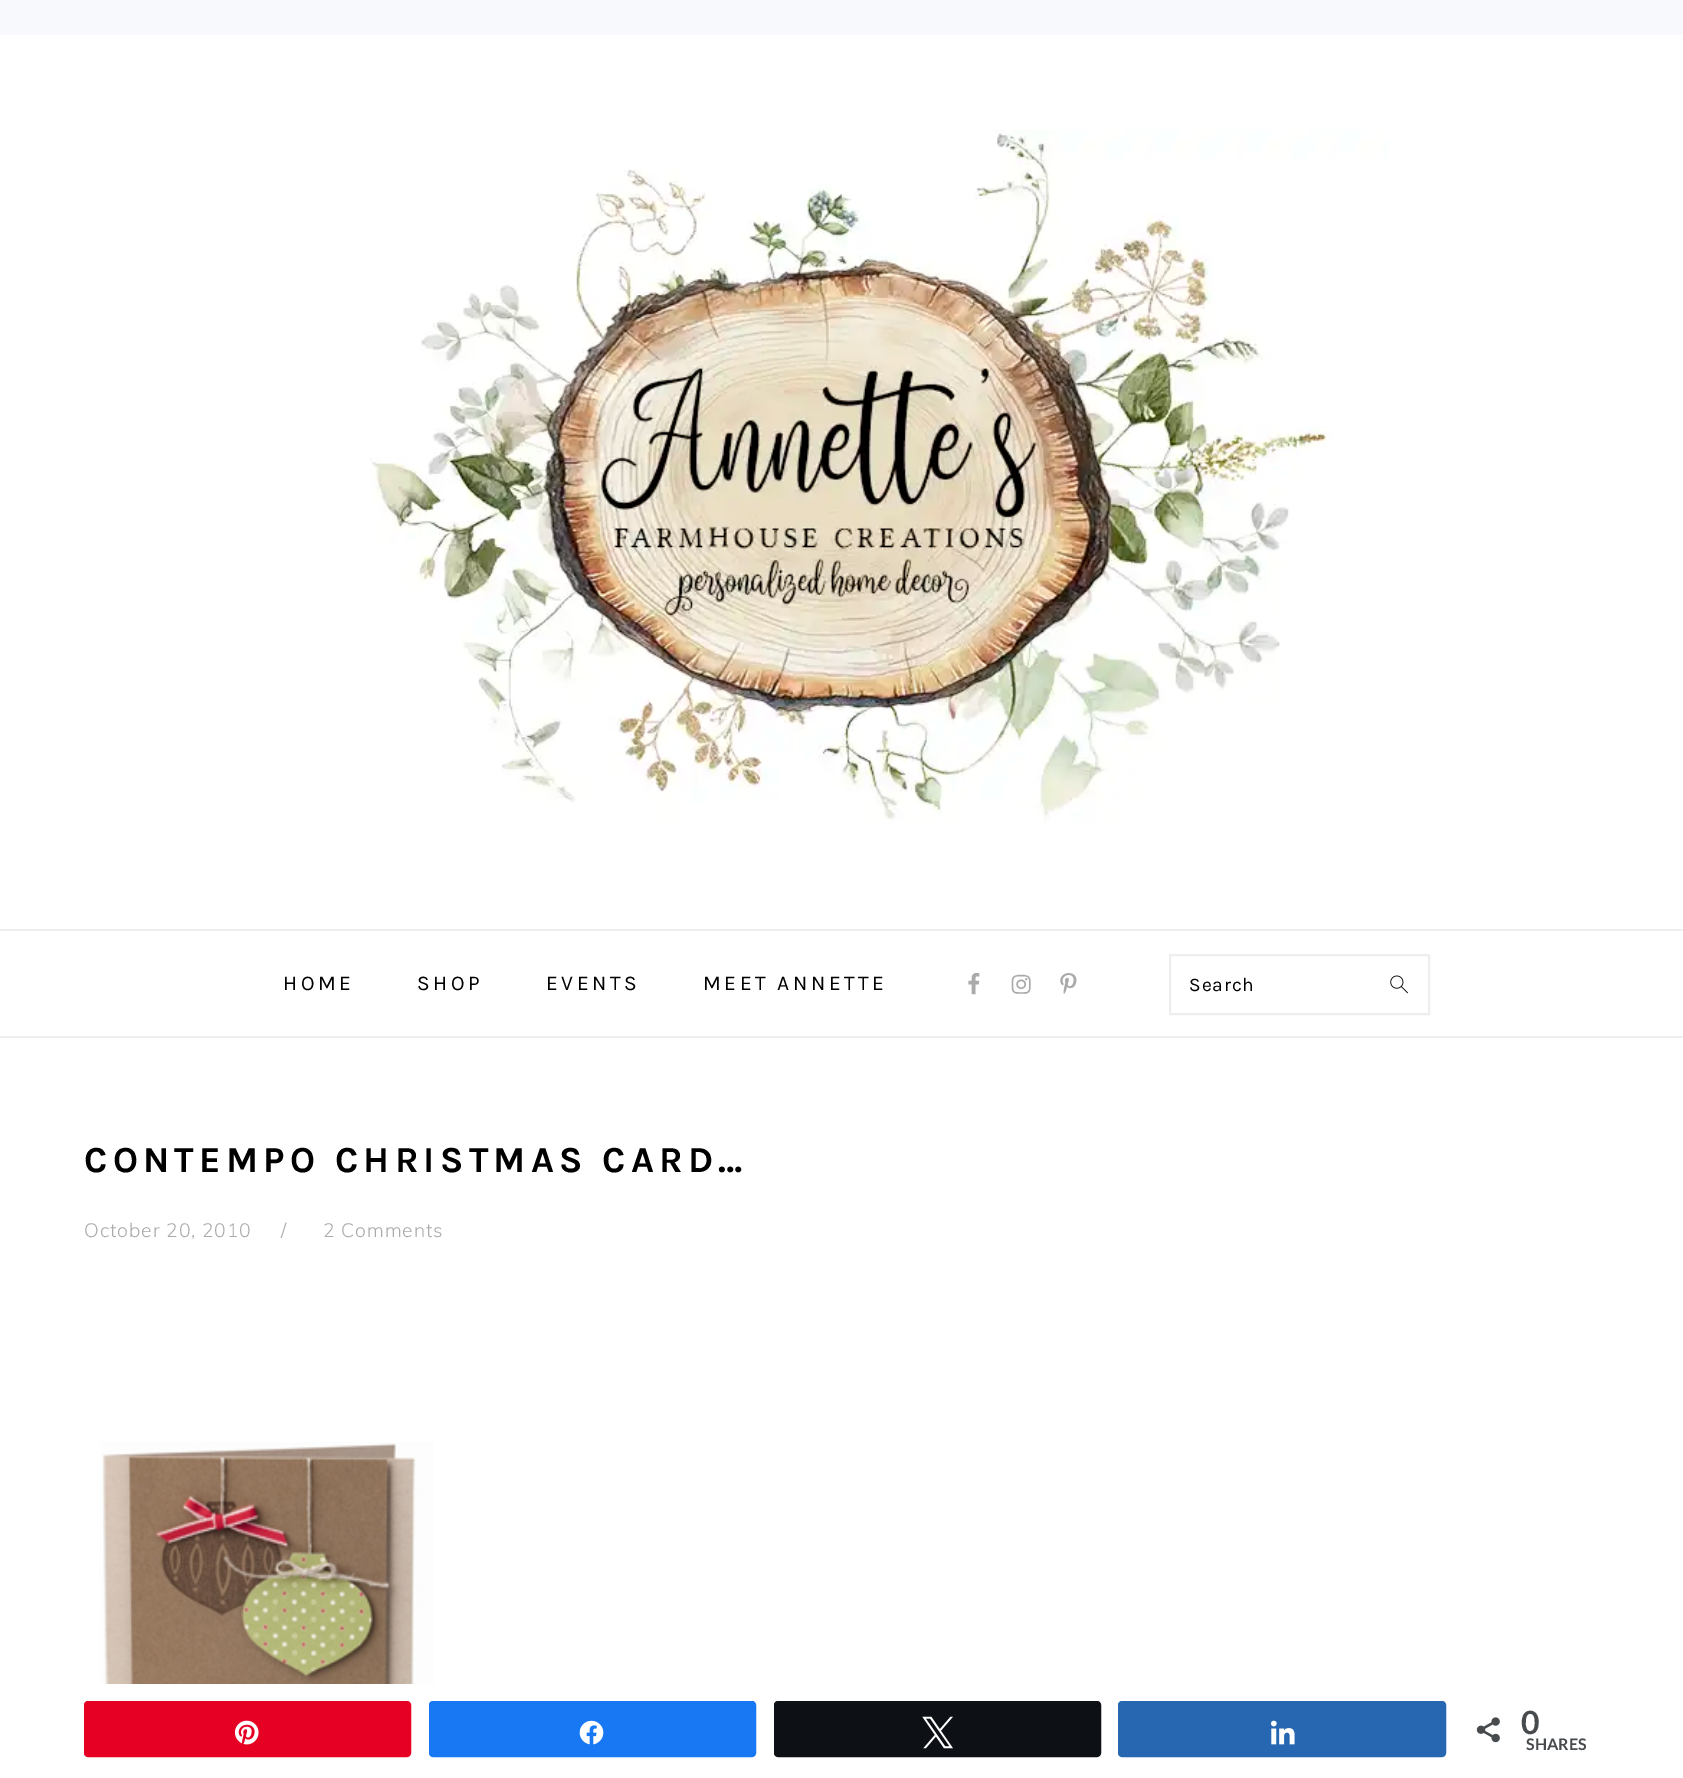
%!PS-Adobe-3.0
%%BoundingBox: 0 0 1683 1778
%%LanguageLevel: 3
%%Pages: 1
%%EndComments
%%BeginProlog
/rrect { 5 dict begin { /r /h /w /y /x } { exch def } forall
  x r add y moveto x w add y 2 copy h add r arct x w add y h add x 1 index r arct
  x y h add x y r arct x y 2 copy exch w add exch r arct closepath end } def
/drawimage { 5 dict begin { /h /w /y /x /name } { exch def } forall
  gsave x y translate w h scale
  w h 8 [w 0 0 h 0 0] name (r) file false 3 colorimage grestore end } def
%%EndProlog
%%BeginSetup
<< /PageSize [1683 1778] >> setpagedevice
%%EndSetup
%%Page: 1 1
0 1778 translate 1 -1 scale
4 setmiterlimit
1 setgray
0 0 1683 1778 rectfill
0.969 0.976 0.988 setrgbcolor
0 0 1683 35 rectfill
(images/1.raw) 370 130 1019 692 drawimage
0.933 setgray
0 929 1683 2 rectfill
0 1036 1683 2 rectfill
(images/2.raw) 968 973 12 22 drawimage
(images/3.raw) 1011 974 20 20 drawimage
(images/4.raw) 1060 973 17 21 drawimage
2 setlinewidth
1170 955 259 59 rectstroke
(images/5.raw) 1390 975 18 19 drawimage
(images/6.raw) 100 1442 334 242 drawimage
0.902 0 0.137 setrgbcolor
85 1702 325 54 3 rrect gsave fill grestore
stroke
(images/7.raw) 234 1720 25 25 drawimage
0.094 0.467 0.949 setrgbcolor
430 1702 325 54 3 rrect gsave fill grestore
stroke
(images/8.raw) 579 1720 25 25 drawimage
0.051 0.063 0.078 setrgbcolor
775 1702 325 54 3 rrect gsave fill grestore
stroke
(images/9.raw) 922 1716 31 33 drawimage
0.153 0.404 0.694 setrgbcolor
1119 1702 326 54 3 rrect gsave fill grestore
stroke
(images/10.raw) 1271 1720 24 25 drawimage
(images/11.raw) 1476 1717 24 26 drawimage
/Karla-Regular [21 0 0 -21 0 0] selectfont
0 setgray
283 990 moveto 3.5 0 (HOME) ashow
417 990 moveto 3.5 0 (SHOP) ashow
546 990 moveto 3.5 0 (EVENTS) ashow
703 990 moveto 3.5 0 (MEET ANNETTE) ashow
/Karla-Regular [19.25 0 0 -19.25 0 0] selectfont
1189 991 moveto 0.9 0 (Search) ashow
/Karla-Bold [36.75 0 0 -36.75 0 0] selectfont
84 1172 moveto 5.25 0 (CONTEMPO CHRISTMAS CARD…) ashow
/Muli-Light [19.25 0 0 -19.25 0 0] selectfont
0.667 setgray
84 1237 moveto 0.9 0 (October 20, 2010) ashow
281 1237 moveto 0.9 0 (/) ashow
323 1237 moveto 0.9 0 (2 Comments) ashow
/Lato-Bold [32 0 0 -32 0 0] selectfont
0.278 0.294 0.302 setrgbcolor
1521 1734 moveto 0.9 0 (0) ashow
/Lato-Bold [16 0 0 -16 0 0] selectfont
1526 1750 moveto (SHARES) show
showpage
%%EOF
